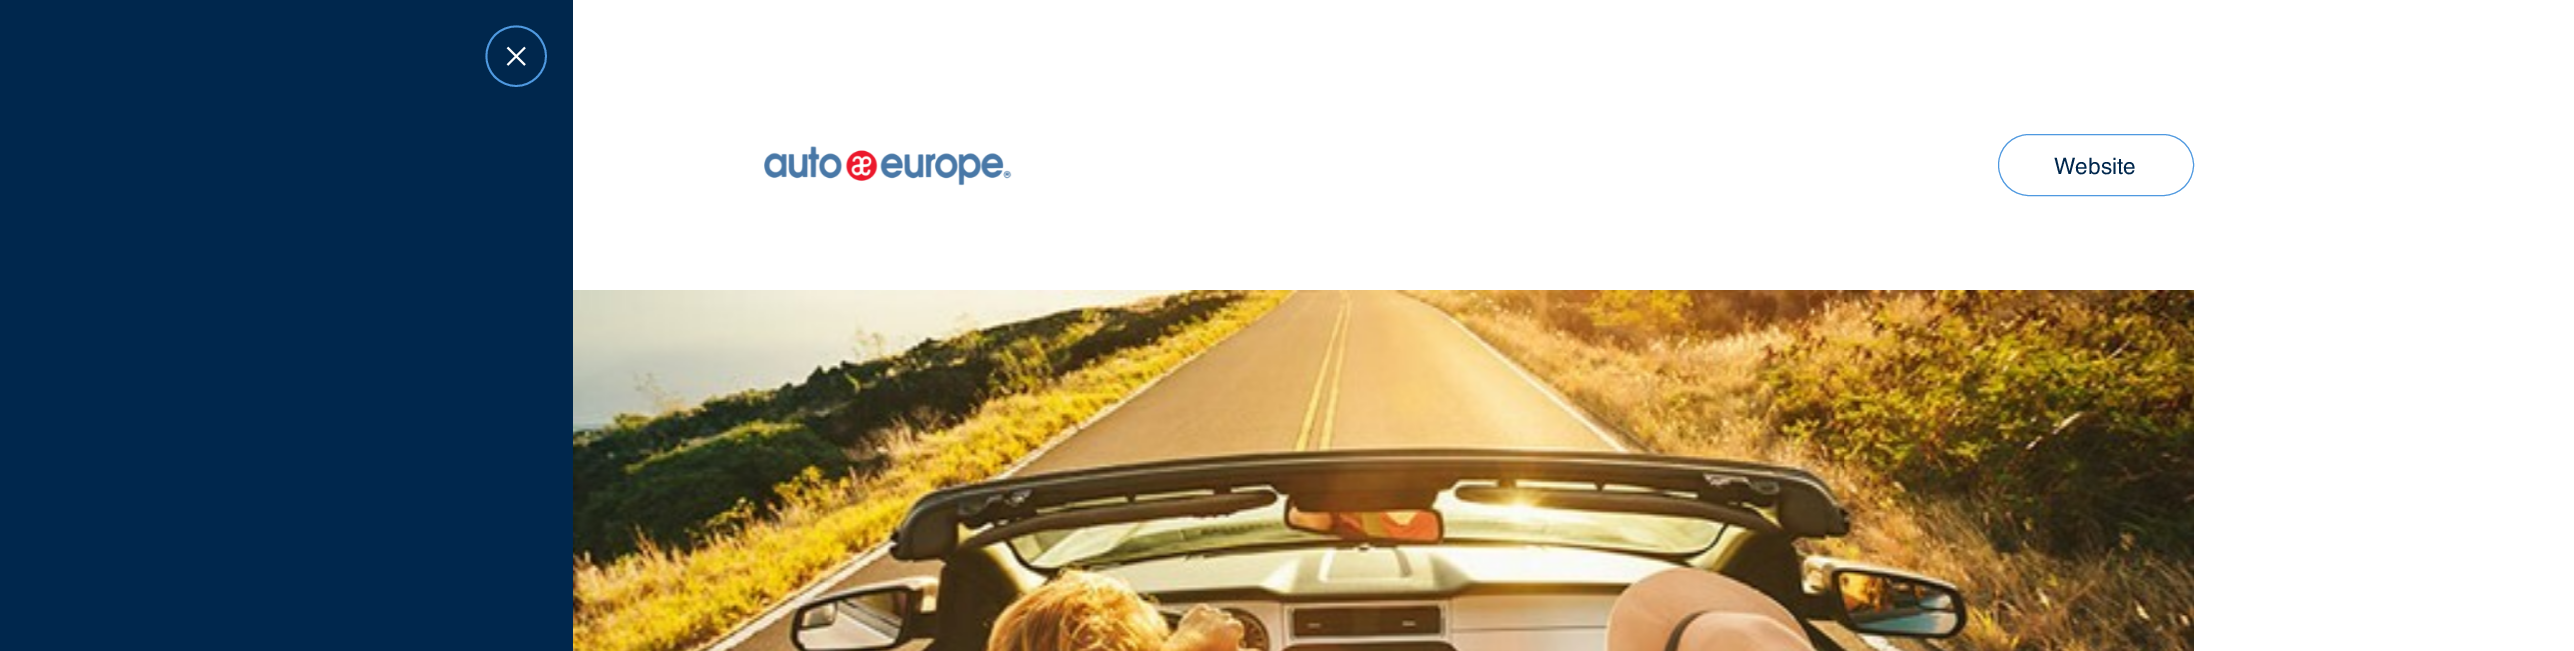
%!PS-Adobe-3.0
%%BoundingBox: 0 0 2574 651
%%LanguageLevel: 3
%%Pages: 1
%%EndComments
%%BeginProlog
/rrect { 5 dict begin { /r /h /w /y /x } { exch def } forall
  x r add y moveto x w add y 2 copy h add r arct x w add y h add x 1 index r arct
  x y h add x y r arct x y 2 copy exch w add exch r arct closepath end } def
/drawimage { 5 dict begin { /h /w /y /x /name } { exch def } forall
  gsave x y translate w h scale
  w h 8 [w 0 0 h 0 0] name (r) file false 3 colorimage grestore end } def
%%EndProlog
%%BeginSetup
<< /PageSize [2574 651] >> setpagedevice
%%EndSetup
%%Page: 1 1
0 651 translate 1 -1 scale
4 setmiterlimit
0 0.153 0.302 setrgbcolor
0 0 2574 651 rectfill
0.31 0.6 0.878 setrgbcolor
1.8 setlinewidth
newpath 537 35 moveto 549 47 549 65.5 537 77 curveto 525.5 89 507 89 495 77 curveto 483.5 65.5 483.5 47 495 35 curveto 507 23.5 525.5 23.5 537 35 curveto closepath stroke
1 setgray
newpath 507.5 47.5 moveto 525 65 lineto 507.5 65 moveto 525 47.5 lineto stroke
573 0 2001 651 rectfill
(images/1.raw) 764 146 248 40 drawimage
0.31 0.6 0.878 setrgbcolor
1 setlinewidth
1998.5 134.5 195 61 30.5 rrect stroke
(images/2.raw) 573 290 1621 361 drawimage
/helvetica-Regular [22.5 0 0 -22.5 0 0] selectfont
0 0.153 0.302 setrgbcolor
2054 174 moveto (Website) show
showpage
%%EOF
